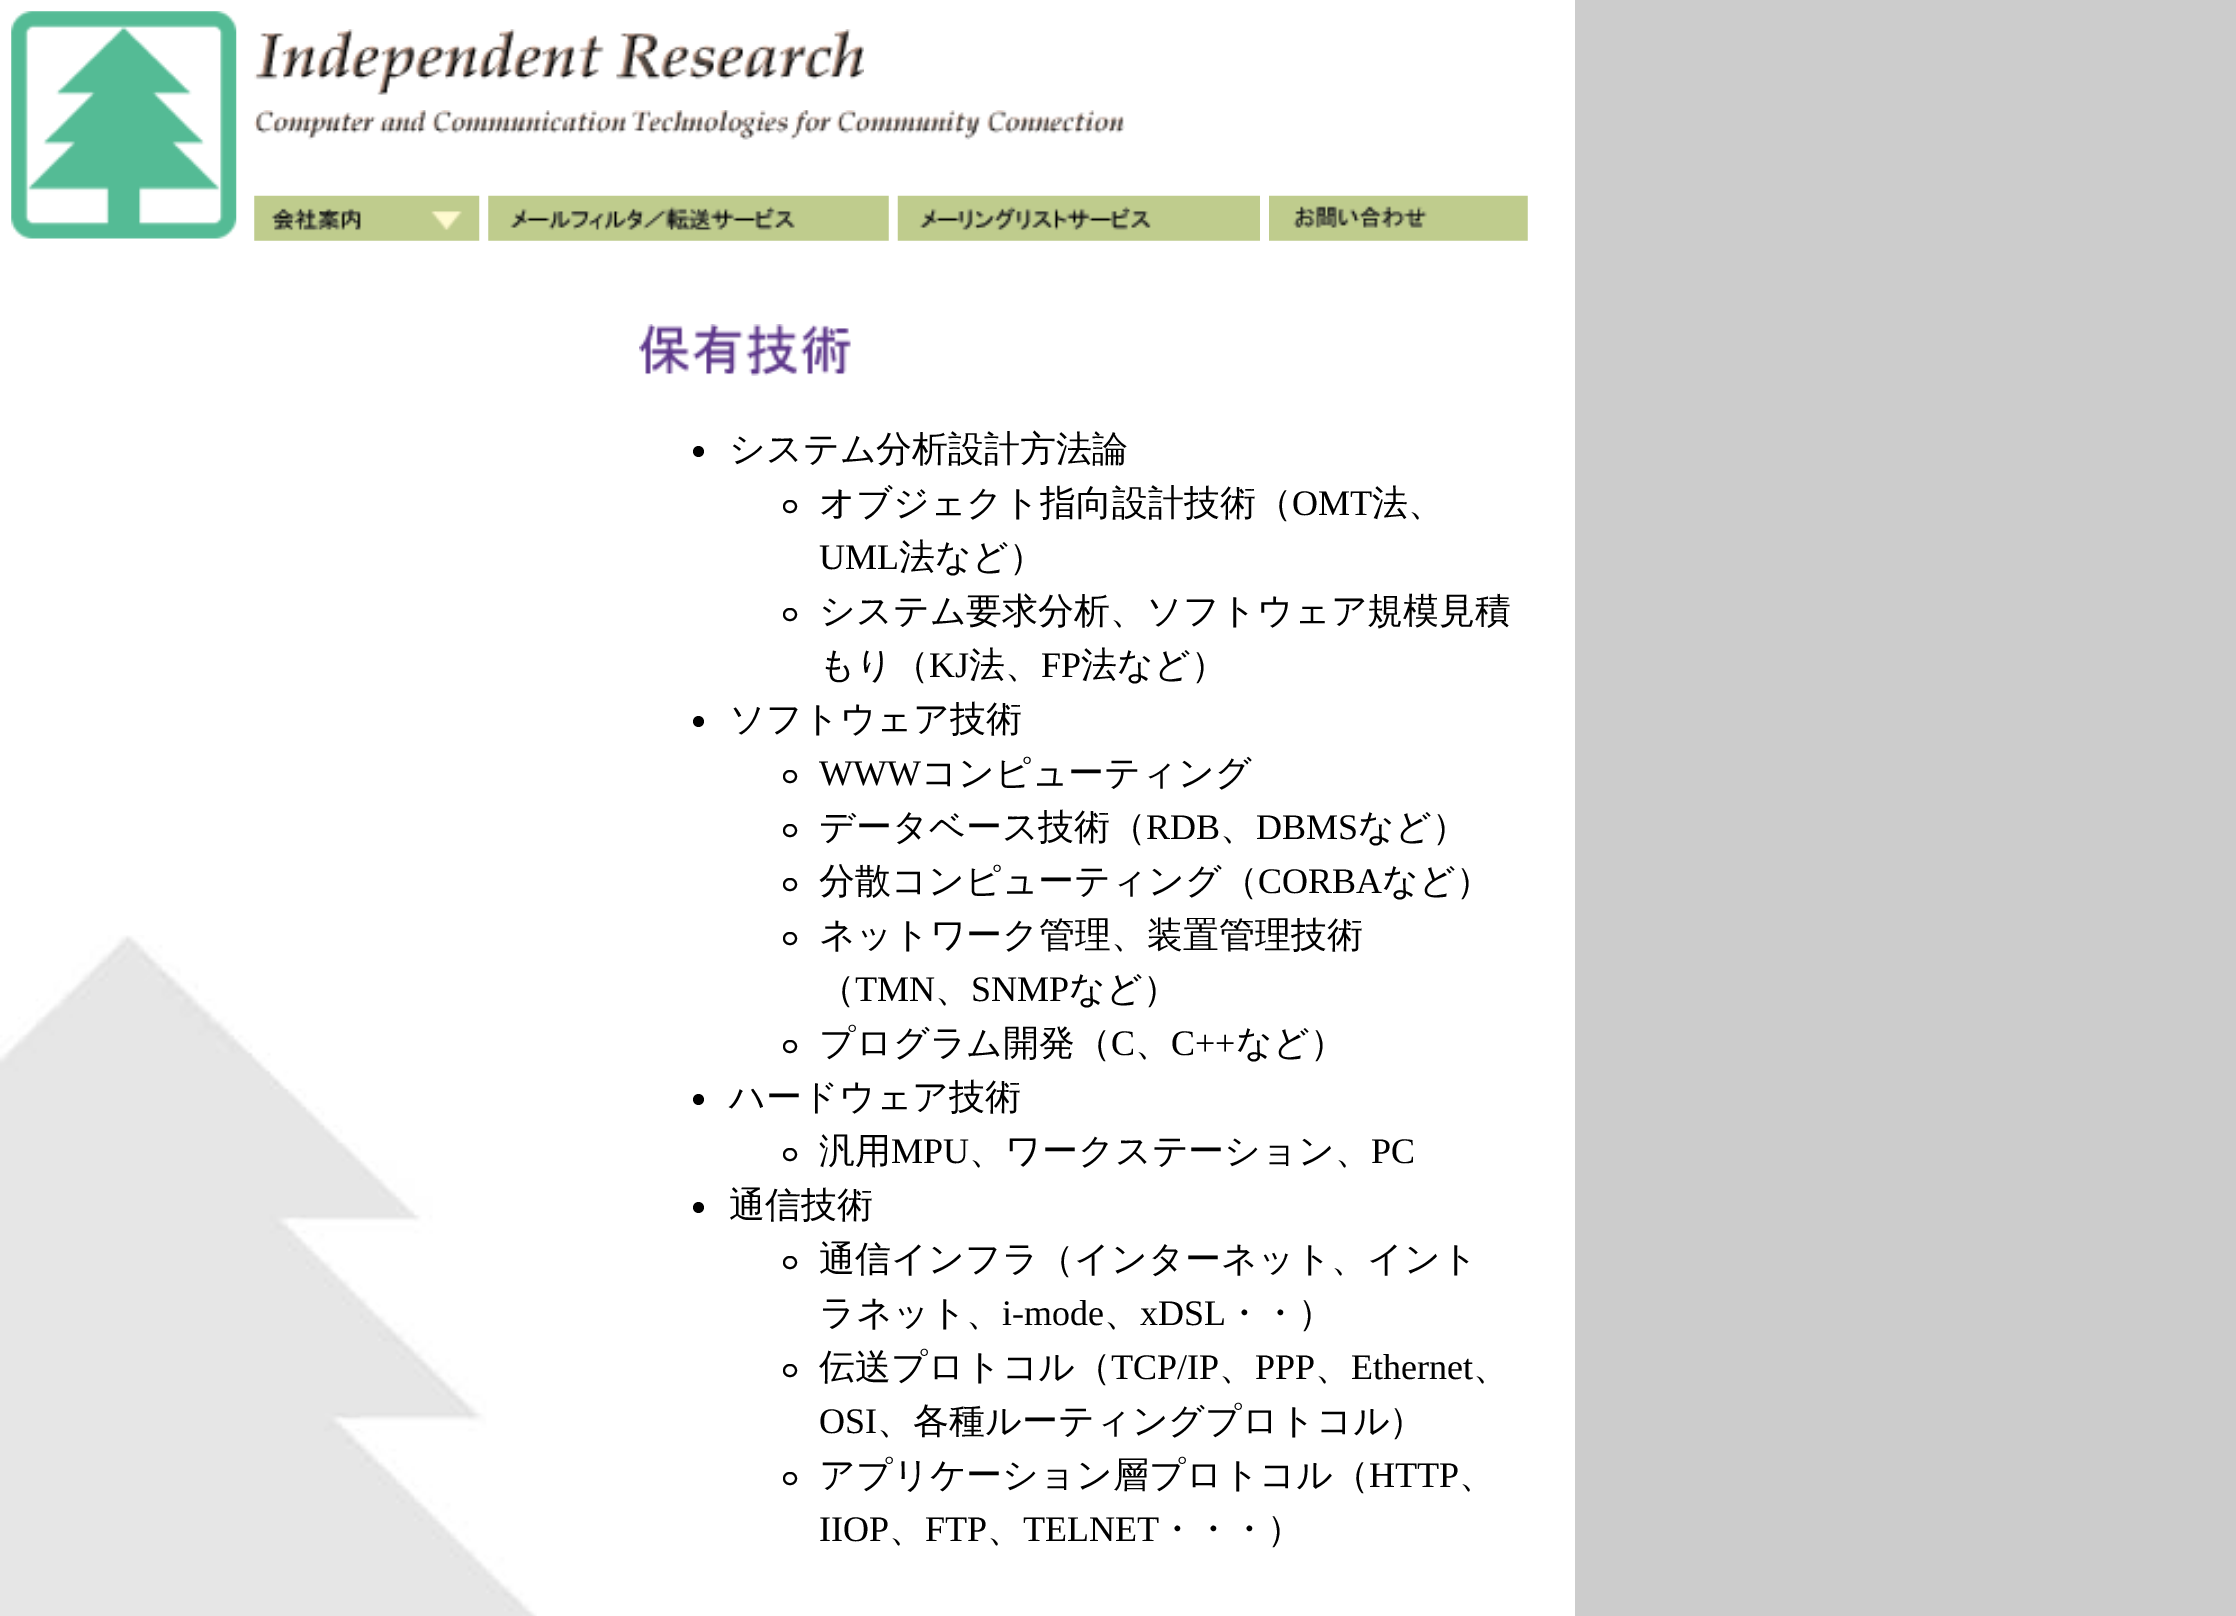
%!PS-Adobe-3.0
%%BoundingBox: 0 0 2236 1616
%%LanguageLevel: 3
%%Pages: 1
%%EndComments
%%BeginProlog
/rrect { 5 dict begin { /r /h /w /y /x } { exch def } forall
  x r add y moveto x w add y 2 copy h add r arct x w add y h add x 1 index r arct
  x y h add x y r arct x y 2 copy exch w add exch r arct closepath end } def
/drawimage { 5 dict begin { /h /w /y /x /name } { exch def } forall
  gsave x y translate w h scale
  w h 8 [w 0 0 h 0 0] name (r) file false 3 colorimage grestore end } def
%%EndProlog
%%BeginSetup
<< /PageSize [2236 1616] >> setpagedevice
%%EndSetup
%%Page: 1 1
0 1616 translate 1 -1 scale
4 setmiterlimit
0.8 setgray
0 0 2236 1616 rectfill
1 setgray
0 0 1575 1616 rectfill
(images/1.raw) 0 935 537 681 drawimage
(images/2.raw) 11 11 226 228 drawimage
(images/3.raw) 254 29 610 66 drawimage
(images/4.raw) 254 110 871 30 drawimage
(images/5.raw) 254 195 226 46 drawimage
(images/6.raw) 488 195 401 46 drawimage
(images/7.raw) 897 195 363 46 drawimage
(images/8.raw) 1269 195 259 46 drawimage
(images/9.raw) 639 324 212 52 drawimage
0 setgray
newpath 698.5 451.5 5.5 0 360 arc closepath fill
2 setlinewidth
784 501 12 11 5.5 rrect stroke
784 609 12 11 5.5 rrect stroke
newpath 698.5 721.5 5.5 0 360 arc closepath fill
784 771 12 11 5.5 rrect stroke
784 825 12 11 5.5 rrect stroke
784 879 12 11 5.5 rrect stroke
784 933 12 11 5.5 rrect stroke
784 1041 12 11 5.5 rrect stroke
newpath 698.5 1099.5 5.5 0 360 arc closepath fill
784 1149 12 11 5.5 rrect stroke
newpath 698.5 1207.5 5.5 0 360 arc closepath fill
784 1257 12 11 5.5 rrect stroke
784 1365 12 11 5.5 rrect stroke
784 1473 12 11 5.5 rrect stroke
/WenQuanYiZenHei-Medium [36 0 0 -36 0 0] selectfont
729 461 moveto (システム分析設計方法論) show
819 515 moveto (オブジェクト指向設計技術（) show
/LiberationSerif-Regular [36 0 0 -36 0 0] selectfont
1292 515 moveto (OMT) show
/WenQuanYiZenHei-Medium [36 0 0 -36 0 0] selectfont
1372 515 moveto (法、) show
/LiberationSerif-Regular [36 0 0 -36 0 0] selectfont
819 569 moveto (UML) show
/WenQuanYiZenHei-Medium [36 0 0 -36 0 0] selectfont
899 569 moveto (法など）) show
819 623 moveto (システム要求分析、ソフトウェア規模見積) show
819 677 moveto (もり（) show
/LiberationSerif-Regular [36 0 0 -36 0 0] selectfont
929 677 moveto (KJ) show
/WenQuanYiZenHei-Medium [36 0 0 -36 0 0] selectfont
969 677 moveto (法、) show
/LiberationSerif-Regular [36 0 0 -36 0 0] selectfont
1041 677 moveto (FP) show
/WenQuanYiZenHei-Medium [36 0 0 -36 0 0] selectfont
1081 677 moveto (法など）) show
729 731 moveto (ソフトウェア技術) show
/LiberationSerif-Regular [36 0 0 -36 0 0] selectfont
819 785 moveto (WWW) show
/WenQuanYiZenHei-Medium [36 0 0 -36 0 0] selectfont
921 785 moveto (コンピューティング) show
819 839 moveto (データベース技術（) show
/LiberationSerif-Regular [36 0 0 -36 0 0] selectfont
1146 839 moveto (RDB) show
1256 839 moveto (DBMS) show
/WenQuanYiZenHei-Medium [36 0 0 -36 0 0] selectfont
1358 839 moveto (など）) show
1220 839 moveto (、) show
819 893 moveto (分散コンピューティング（) show
/LiberationSerif-Regular [36 0 0 -36 0 0] selectfont
1258 893 moveto (CORBA) show
/WenQuanYiZenHei-Medium [36 0 0 -36 0 0] selectfont
1382 893 moveto (など）) show
819 947 moveto (ネットワーク管理、装置管理技術) show
819 1001 moveto (（) show
/LiberationSerif-Regular [36 0 0 -36 0 0] selectfont
855 1001 moveto (TMN) show
/WenQuanYiZenHei-Medium [36 0 0 -36 0 0] selectfont
935 1001 moveto (、) show
/LiberationSerif-Regular [36 0 0 -36 0 0] selectfont
971 1001 moveto (SNMP) show
/WenQuanYiZenHei-Medium [36 0 0 -36 0 0] selectfont
1069 1001 moveto (など）) show
819 1055 moveto (プログラム開発（) show
/LiberationSerif-Regular [36 0 0 -36 0 0] selectfont
1111 1055 moveto (C) show
1171 1055 moveto (C++) show
/WenQuanYiZenHei-Medium [36 0 0 -36 0 0] selectfont
1236 1055 moveto (など）) show
1135 1055 moveto (、) show
729 1109 moveto (ハードウェア技術) show
819 1163 moveto (汎用) show
/LiberationSerif-Regular [36 0 0 -36 0 0] selectfont
891 1163 moveto (MPU) show
/WenQuanYiZenHei-Medium [36 0 0 -36 0 0] selectfont
969 1163 moveto (、ワークステーション、) show
/LiberationSerif-Regular [36 0 0 -36 0 0] selectfont
1371 1163 moveto (PC) show
/WenQuanYiZenHei-Medium [36 0 0 -36 0 0] selectfont
729 1217 moveto (通信技術) show
819 1271 moveto (通信インフラ（インターネット、イント) show
819 1325 moveto (ラネット、) show
/LiberationSerif-Regular [36 0 0 -36 0 0] selectfont
1002 1325 moveto (i-mode) show
/WenQuanYiZenHei-Medium [36 0 0 -36 0 0] selectfont
1104 1325 moveto (、) show
/LiberationSerif-Regular [36 0 0 -36 0 0] selectfont
1140 1325 moveto (xDSL) show
/WenQuanYiZenHei-Medium [36 0 0 -36 0 0] selectfont
1226 1325 moveto (・・）) show
819 1379 moveto (伝送プロトコル（) show
/LiberationSerif-Regular [36 0 0 -36 0 0] selectfont
1111 1379 moveto (TCP/IP) show
1255 1379 moveto (PPP) show
1351 1379 moveto (Ethernet) show
/WenQuanYiZenHei-Medium [36 0 0 -36 0 0] selectfont
1219 1379 moveto (、) show
1315 1379 moveto (、) show
1473 1379 moveto (、) show
/LiberationSerif-Regular [36 0 0 -36 0 0] selectfont
819 1433 moveto (OSI) show
/WenQuanYiZenHei-Medium [36 0 0 -36 0 0] selectfont
877 1433 moveto (、各種ルーティングプロトコル）) show
819 1487 moveto (アプリケーション層プロトコル（) show
/LiberationSerif-Regular [36 0 0 -36 0 0] selectfont
1369 1487 moveto (HTTP) show
/WenQuanYiZenHei-Medium [36 0 0 -36 0 0] selectfont
1459 1487 moveto (、) show
/LiberationSerif-Regular [36 0 0 -36 0 0] selectfont
819 1541 moveto (IIOP) show
925 1541 moveto (FTP) show
1023 1541 moveto (TELNET) show
/WenQuanYiZenHei-Medium [36 0 0 -36 0 0] selectfont
1159 1541 moveto (・・・）) show
889 1541 moveto (、) show
987 1541 moveto (、) show
showpage
%%EOF
